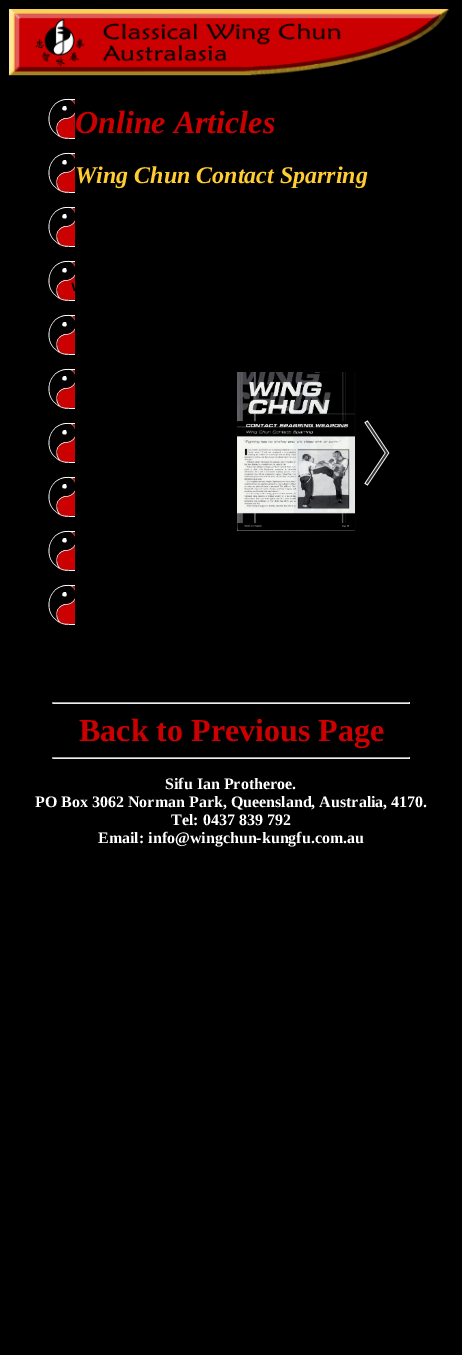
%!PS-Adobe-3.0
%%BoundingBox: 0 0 462 1355
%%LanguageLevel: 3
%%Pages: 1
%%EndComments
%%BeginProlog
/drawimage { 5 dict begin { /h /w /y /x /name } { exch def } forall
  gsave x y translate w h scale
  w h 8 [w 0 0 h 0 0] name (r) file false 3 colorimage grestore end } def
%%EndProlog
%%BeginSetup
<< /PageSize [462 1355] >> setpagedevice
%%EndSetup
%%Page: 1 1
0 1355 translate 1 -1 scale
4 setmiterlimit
0 setgray
0 0 462 1355 rectfill
(images/1.raw) 9 9 440 67 drawimage
(images/2.raw) 48 98 27 41 drawimage
(images/2.raw) 48 152 27 41 drawimage
(images/2.raw) 48 206 27 41 drawimage
(images/3.raw) 48 260 27 41 drawimage
(images/2.raw) 48 314 27 41 drawimage
(images/2.raw) 48 368 27 41 drawimage
(images/2.raw) 48 422 27 41 drawimage
(images/2.raw) 48 476 27 41 drawimage
(images/2.raw) 48 530 27 41 drawimage
(images/2.raw) 48 584 27 41 drawimage
(images/4.raw) 237 372 153 159 drawimage
0.624 setgray
52 702 358 1 rectfill
0.933 setgray
409 702 1 2 rectfill
52 703 358 1 rectfill
0.624 setgray
52 702 1 2 rectfill
52 757 358 1 rectfill
0.933 setgray
409 757 1 2 rectfill
52 758 358 1 rectfill
0.624 setgray
52 757 1 2 rectfill
/LiberationSerif-BoldItalic [32 0 0 -32 0 0] selectfont
0.8 0 0 setrgbcolor
75 133 moveto (Online Articles) show
/LiberationSerif-BoldItalic [24 0 0 -24 0 0] selectfont
1 0.8 0.2 setrgbcolor
75 183 moveto (Wing Chun Contact Sparring) show
/LiberationSerif-Bold [32 0 0 -32 0 0] selectfont
0.8 0 0 setrgbcolor
79 741 moveto (Back to Previous Page) show
/LiberationSerif-Bold [16 0 0 -16 0 0] selectfont
1 setgray
165 789 moveto (Sifu Ian Protheroe.) show
35 807 moveto (PO Box 3062 Norman Park, Queensland, Australia, 4170.) show
171 825 moveto (Tel: 0437 839 792) show
98 843 moveto (Email: info@wingchun-kungfu.com.au) show
showpage
%%EOF
